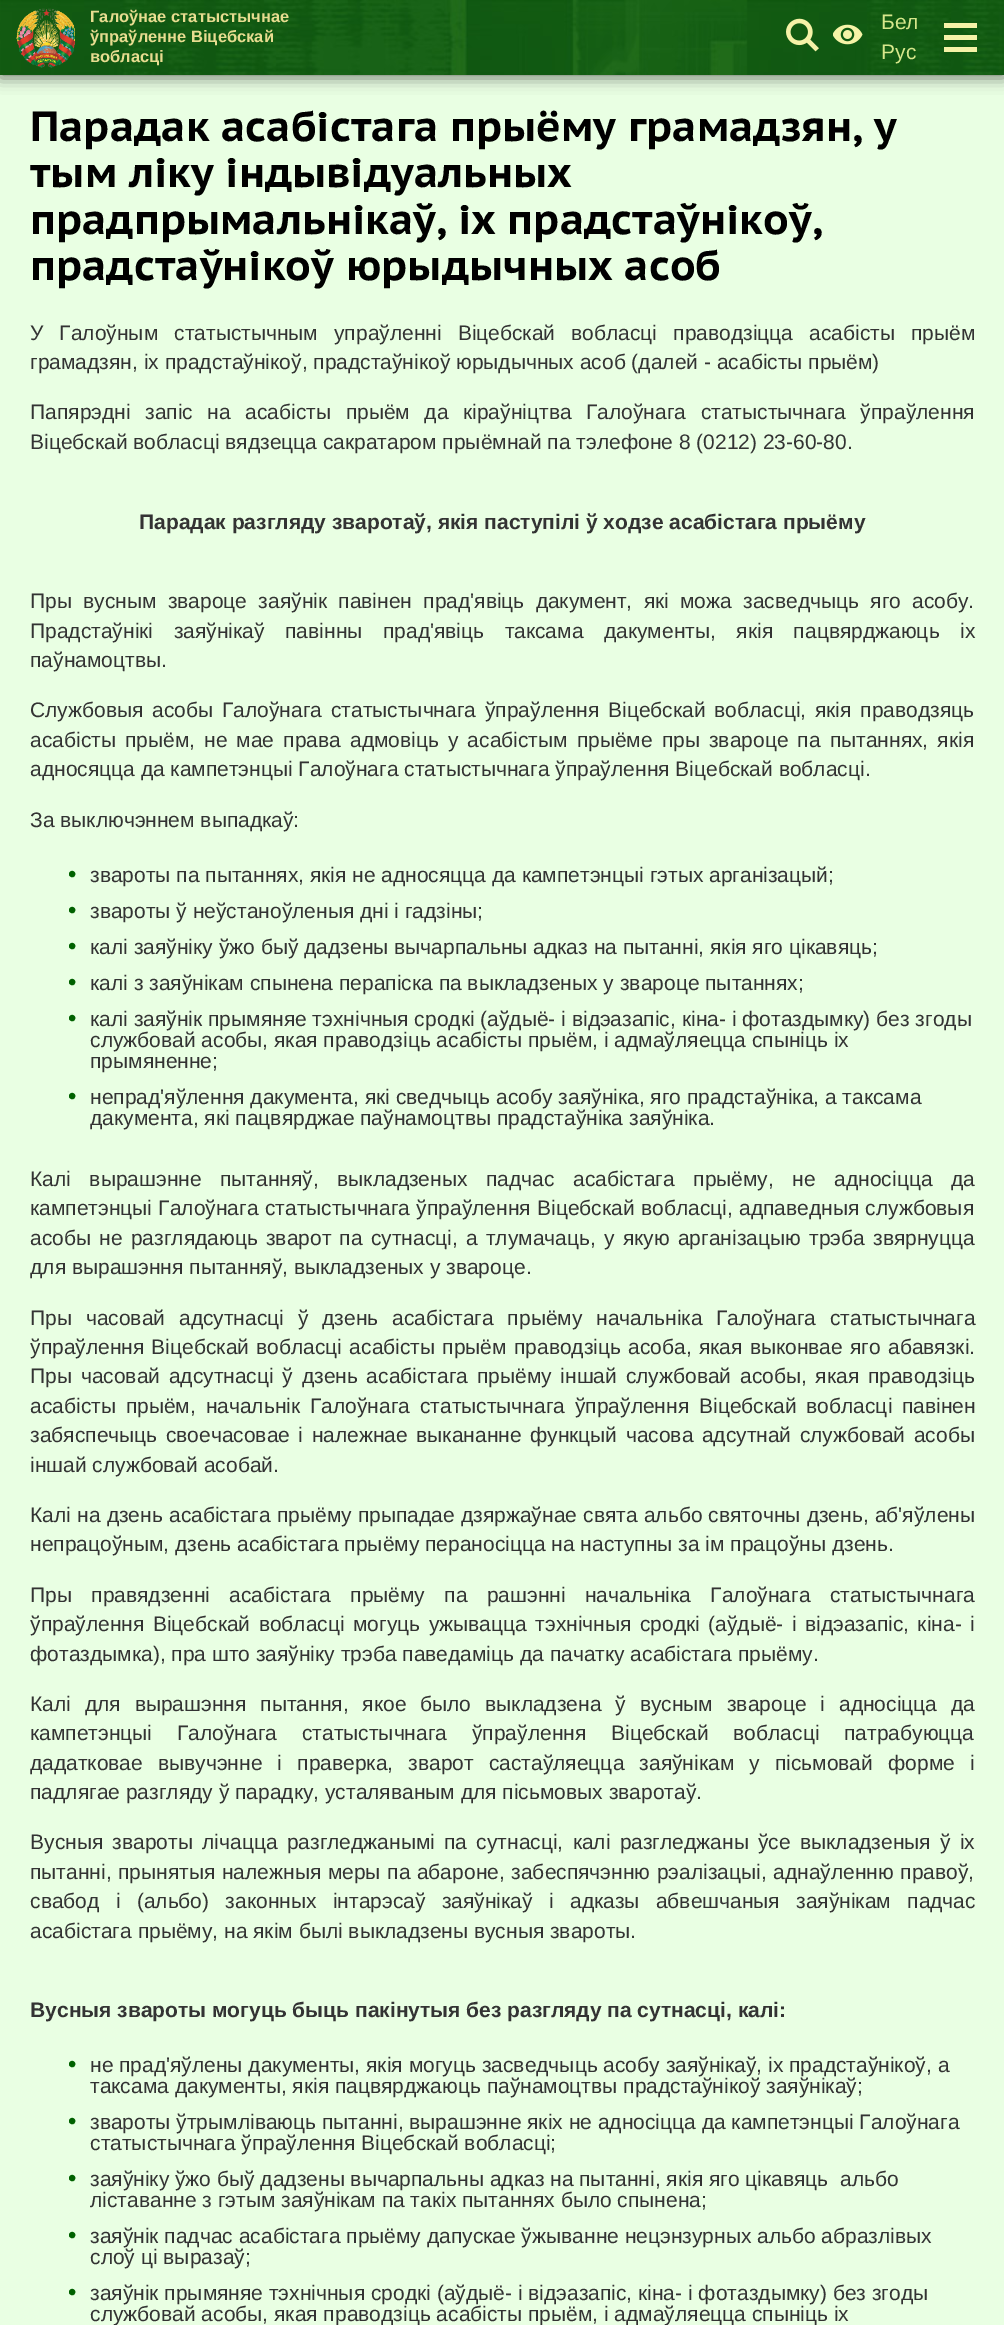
%!PS-Adobe-3.0
%%BoundingBox: 0 0 1004 2325
%%LanguageLevel: 3
%%Pages: 1
%%EndComments
%%BeginProlog
/setalpha { dup .setfillconstantalpha .setstrokeconstantalpha } def
/rrect { 5 dict begin { /r /h /w /y /x } { exch def } forall
  x r add y moveto x w add y 2 copy h add r arct x w add y h add x 1 index r arct
  x y h add x y r arct x y 2 copy exch w add exch r arct closepath end } def
/softshadow { 12 dict begin { /a /b /q /h /w /y /x } { exch def } forall gsave /was 0 def
  9 -2 -9 { dup b mul 4 div /e exch def 1 sub .425 mul 2.718 exch exp 1 add a .99 .min exch div /now exch def
    1 1 now sub 1 was sub div sub setalpha /was now def
    w h .min e 2 mul add 0 gt { x e sub y e sub w e 2 mul add h e 2 mul add
      q e add b .6 mul add w h .min 2 div e add .min 0 .max rrect fill } if } for grestore end } def
/drawimage { 5 dict begin { /h /w /y /x /name } { exch def } forall
  gsave x y translate w h scale
  w h 8 [w 0 0 h 0 0] name (r) file false 3 colorimage grestore end } def
%%EndProlog
%%BeginSetup
<< /PageSize [1004 2325] /PageUsesTransparency true >> setpagedevice
%%EndSetup
%%Page: 1 1
0 .pushpdf14devicefilter
0 2325 translate 1 -1 scale
4 setmiterlimit
0.914 1 0.89 setrgbcolor
0 0 1004 2325 rectfill
0 setgray
0 3 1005 75 0 7.5 0.5 softshadow
(images/1.raw) 0 0 1004 75 drawimage
(images/2.raw) 16 8 59 60 drawimage
(images/3.raw) 786 18 33 34 drawimage
(images/4.raw) 833 24 30 21 drawimage
0.961 0.949 0.655 setrgbcolor
944 35 33 5 rectfill
944 23 33 5 rectfill
944 47 33 5 rectfill
/LiberationSans-Bold [16.5 0 0 -16.5 0 0] selectfont
0.906 0.863 0.565 setrgbcolor
90 22 moveto (Галоўнае статыстычнае) show
90 42 moveto (ўпраўленне Віцебскай) show
90 62 moveto (вобласці) show
/LiberationSans-Regular [21 0 0 -21 0 0] selectfont
0.839 0.906 0.545 setrgbcolor
881 29 moveto (Бел) show
881 59 moveto (Рус) show
/PTSansCaption-Bold [42 0 0 -42 0 0] selectfont
0 setgray
30 141 moveto (Парадак асабістага прыёму грамадзян, у) show
30 187 moveto (тым ліку індывідуальных) show
30 234 moveto (прадпрымальнікаў, іх прадстаўнікоў,) show
30 280 moveto (прадстаўнікоў юрыдычных асоб) show
/LiberationSans-Regular [21 0 0 -21 0 0] selectfont
0.2 setgray
30 340 moveto 10.25 0 32 (У Галоўным статыстычным упраўленні Віцебскай вобласці праводзіцца асабісты прыём) widthshow
30 369 moveto (грамадзян, іх прадстаўнікоў, прадстаўнікоў юрыдычных асоб \(далей - асабісты прыём\)) show
30 419 moveto 8.75 0 32 (Папярэдні запіс на асабісты прыём да кіраўніцтва Галоўнага статыстычнага ўпраўлення) widthshow
30 449 moveto (Віцебскай вобласці вядзецца сакратаром прыёмнай па тэлефоне 8 \(0212\) 23-60-80.) show
/LiberationSans-Bold [21 0 0 -21 0 0] selectfont
139 529 moveto (Парадак разгляду зваротаў, якія паступілі ў ходзе асабістага прыёму) show
/LiberationSans-Regular [21 0 0 -21 0 0] selectfont
30 608 moveto 5.4 0 32 (Пры вусным звароце заяўнік павінен прад'явіць дакумент, які можа засведчыць яго асобу.) widthshow
30 638 moveto 14.75 0 32 (Прадстаўнікі заяўнікаў павінны прад'явіць таксама дакументы, якія пацвярджаюць іх) widthshow
30 667 moveto (паўнамоцтвы.) show
30 717 moveto 3 0 32 (Службовыя асобы Галоўнага статыстычнага ўпраўлення Віцебскай вобласці, якія праводзяць) widthshow
30 747 moveto 3.25 0 32 (асабісты прыём, не мае права адмовіць у асабістым прыёме пры звароце па пытаннях, якія) widthshow
30 776 moveto (адносяцца да кампетэнцыі Галоўнага статыстычнага ўпраўлення Віцебскай вобласці.) show
30 827 moveto (За выключэннем выпадкаў:) show
/LiberationSans-Regular [24 0 0 -24 0 0] selectfont
0 0.38 0 setrgbcolor
68 882 moveto (•) show
/LiberationSans-Regular [21 0 0 -21 0 0] selectfont
0.2 setgray
90 882 moveto (звароты па пытаннях, якія не адносяцца да кампетэнцыі гэтых арганізацый;) show
/LiberationSans-Regular [24 0 0 -24 0 0] selectfont
0 0.38 0 setrgbcolor
68 918 moveto (•) show
/LiberationSans-Regular [21 0 0 -21 0 0] selectfont
0.2 setgray
90 918 moveto (звароты ў неўстаноўленыя дні і гадзіны;) show
/LiberationSans-Regular [24 0 0 -24 0 0] selectfont
0 0.38 0 setrgbcolor
68 954 moveto (•) show
/LiberationSans-Regular [21 0 0 -21 0 0] selectfont
0.2 setgray
90 954 moveto (калі заяўніку ўжо быў дадзены вычарпальны адказ на пытанні, якія яго цікавяць;) show
/LiberationSans-Regular [24 0 0 -24 0 0] selectfont
0 0.38 0 setrgbcolor
68 990 moveto (•) show
/LiberationSans-Regular [21 0 0 -21 0 0] selectfont
0.2 setgray
90 990 moveto (калі з заяўнікам спынена перапіска па выкладзеных у звароце пытаннях;) show
/LiberationSans-Regular [24 0 0 -24 0 0] selectfont
0 0.38 0 setrgbcolor
68 1026 moveto (•) show
/LiberationSans-Regular [21 0 0 -21 0 0] selectfont
0.2 setgray
90 1026 moveto (калі заяўнік прымяняе тэхнічныя сродкі \(аўдыё- і відэазапіс, кіна- і фотаздымку\) без згоды) show
90 1047 moveto (службовай асобы, якая праводзіць асабісты прыём, і адмаўляецца спыніць іх) show
90 1068 moveto (прымяненне;) show
/LiberationSans-Regular [24 0 0 -24 0 0] selectfont
0 0.38 0 setrgbcolor
68 1104 moveto (•) show
/LiberationSans-Regular [21 0 0 -21 0 0] selectfont
0.2 setgray
90 1104 moveto (непрад'яўлення дакумента, які сведчыць асобу заяўніка, яго прадстаўніка, а таксама) show
90 1125 moveto (дакумента, які пацвярджае паўнамоцтвы прадстаўніка заяўніка.) show
30 1186 moveto 12.75 0 32 (Калі вырашэнне пытанняў, выкладзеных падчас асабістага прыёму, не адносіцца да) widthshow
30 1215 moveto 0.5 0 32 (кампетэнцыі Галоўнага статыстычнага ўпраўлення Віцебскай вобласці, адпаведныя службовыя) widthshow
30 1245 moveto 2.4 0 32 (асобы не разглядаюць зварот па сутнасці, а тлумачаць, у якую арганізацыю трэба звярнуцца) widthshow
30 1274 moveto (для вырашэння пытанняў, выкладзеных у звароце.) show
30 1325 moveto 8 0 32 (Пры часовай адсутнасці ў дзень асабістага прыёму начальніка Галоўнага статыстычнага) widthshow
30 1354 moveto 1.4 0 32 (ўпраўлення Віцебскай вобласці асабісты прыём праводзіць асоба, якая выконвае яго абавязкі.) widthshow
30 1383 moveto 2.9 0 32 (Пры часовай адсутнасці ў дзень асабістага прыёму іншай службовай асобы, якая праводзiць) widthshow
30 1413 moveto 4 0 32 (асабісты прыём, начальнік Галоўнага статыстычнага ўпраўлення Віцебскай вобласці павінен) widthshow
30 1442 moveto 2.6 0 32 (забяспечыць своечасовае і належнае выкананне функцый часова адсутнай службовай асобы) widthshow
30 1472 moveto (іншай службовай асобай.) show
30 1522 moveto 0.4 0 32 (Калі на дзень асабістага прыёму прыпадае дзяржаўнае свята альбо святочны дзень, аб'яўлены) widthshow
30 1551 moveto (непрацоўным, дзень асабістага прыёму пераносіцца на наступны за ім працоўны дзень.) show
30 1602 moveto 13.5 0 32 (Пры правядзенні асабістага прыёму па рашэнні начальніка Галоўнага статыстычнага) widthshow
30 1631 moveto 2.6 0 32 (ўпраўлення Віцебскай вобласці могуць ужывацца тэхнічныя сродкі \(аўдыё- і відэазапіс, кіна- і) widthshow
30 1661 moveto (фотаздымка\), пра што заяўніку трэба паведаміць да пачатку асабістага прыёму.) show
30 1711 moveto 8.1 0 32 (Калі для вырашэння пытання, якое было выкладзена ў вусным звароце і адносіцца да) widthshow
30 1740 moveto 19 0 32 (кампетэнцыі Галоўнага статыстычнага ўпраўлення Віцебскай вобласці патрабуюцца) widthshow
30 1770 moveto 9.25 0 32 (дадатковае вывучэнне і праверка, зварот састаўляецца заяўнікам у пісьмовай форме і) widthshow
30 1799 moveto (падлягае разгляду ў парадку, усталяваным для пісьмовых зваротаў.) show
30 1849 moveto 3.4 0 32 (Вусныя звароты лічацца разгледжанымі па сутнасці, калі разгледжаны ўсе выкладзеныя ў іх) widthshow
30 1879 moveto 0.75 0 32 (пытанні, прынятыя належныя меры па абароне, забеспячэнню рэалізацыі, аднаўленню правоў,) widthshow
30 1908 moveto 10.5 0 32 (свабод і \(альбо\) законных інтарэсаў заяўнікаў і адказы абвешчаныя заяўнікам падчас) widthshow
30 1938 moveto (асабістага прыёму, на якім былі выкладзены вусныя звароты.) show
/LiberationSans-Bold [21 0 0 -21 0 0] selectfont
30 2017 moveto (Вусныя звароты могуць быць пакінутыя без разгляду па сутнасці, калі:) show
/LiberationSans-Regular [24 0 0 -24 0 0] selectfont
0 0.38 0 setrgbcolor
68 2072 moveto (•) show
/LiberationSans-Regular [21 0 0 -21 0 0] selectfont
0.2 setgray
90 2072 moveto (не прад'яўлены дакументы, якія могуць засведчыць асобу заяўнікаў, іх прадстаўнікоў, а) show
90 2093 moveto (таксама дакументы, якія пацвярджаюць паўнамоцтвы прадстаўнікоў заяўнікаў;) show
/LiberationSans-Regular [24 0 0 -24 0 0] selectfont
0 0.38 0 setrgbcolor
68 2129 moveto (•) show
/LiberationSans-Regular [21 0 0 -21 0 0] selectfont
0.2 setgray
90 2129 moveto (звароты ўтрымліваюць пытанні, вырашэнне якіх не адносіцца да кампетэнцыі Галоўнага) show
90 2150 moveto (статыстычнага ўпраўлення Віцебскай вобласці;) show
/LiberationSans-Regular [24 0 0 -24 0 0] selectfont
0 0.38 0 setrgbcolor
68 2186 moveto (•) show
/LiberationSans-Regular [21 0 0 -21 0 0] selectfont
0.2 setgray
90 2186 moveto (заяўніку ўжо быў дадзены вычарпальны адказ на пытанні, якія яго цікавяць  альбо) show
90 2207 moveto (ліставанне з гэтым заяўнікам па такіх пытаннях было спынена;) show
/LiberationSans-Regular [24 0 0 -24 0 0] selectfont
0 0.38 0 setrgbcolor
68 2243 moveto (•) show
/LiberationSans-Regular [21 0 0 -21 0 0] selectfont
0.2 setgray
90 2243 moveto (заяўнік падчас асабістага прыёму дапускае ўжыванне нецэнзурных альбо абразлівых) show
90 2264 moveto (слоў ці выразаў;) show
/LiberationSans-Regular [24 0 0 -24 0 0] selectfont
0 0.38 0 setrgbcolor
68 2300 moveto (•) show
/LiberationSans-Regular [21 0 0 -21 0 0] selectfont
0.2 setgray
90 2300 moveto (заяўнік прымяняе тэхнічныя сродкі \(аўдыё- і відэазапіс, кіна- і фотаздымку\) без згоды) show
90 2321 moveto (службовай асобы, якая праводзіць асабісты прыём, і адмаўляецца спыніць іх) show
.poppdf14devicefilter showpage
%%EOF
